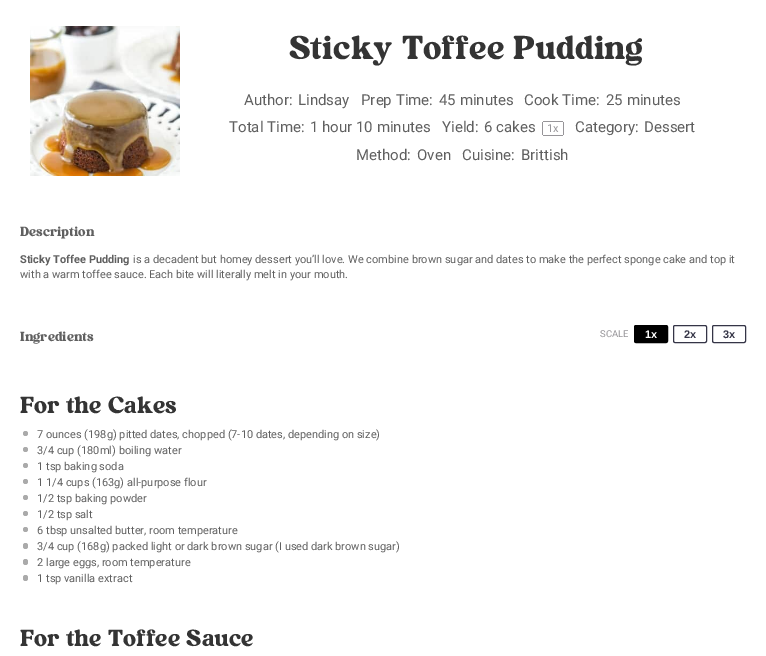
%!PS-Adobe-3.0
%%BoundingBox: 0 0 766 656
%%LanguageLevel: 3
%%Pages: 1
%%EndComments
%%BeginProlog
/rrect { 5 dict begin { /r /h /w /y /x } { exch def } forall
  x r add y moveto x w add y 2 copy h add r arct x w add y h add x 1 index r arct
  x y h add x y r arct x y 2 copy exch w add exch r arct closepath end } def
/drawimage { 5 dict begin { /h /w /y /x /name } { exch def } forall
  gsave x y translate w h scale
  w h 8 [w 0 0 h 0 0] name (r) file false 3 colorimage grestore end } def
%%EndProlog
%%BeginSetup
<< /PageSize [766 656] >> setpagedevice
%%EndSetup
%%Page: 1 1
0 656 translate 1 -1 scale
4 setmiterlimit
1 setgray
0 0 766 656 rectfill
(images/1.raw) 30 26 150 150 drawimage
0.592 0.584 0.6 setrgbcolor
543 121 20 1 rectfill
543 135 20 1 rectfill
542 122 1 13 rectfill
563 122 1 13 rectfill
0 setgray
634.5 325.5 33 17 1.5 rrect gsave fill grestore
stroke
0.208 0.208 0.278 setrgbcolor
673.5 325.5 33 17 1.5 rrect stroke
712.5 325.5 33 17 1.5 rrect stroke
0.667 setgray
newpath 25.5 433.5 2.5 0 360 arc closepath fill
newpath 25.5 449.5 2.5 0 360 arc closepath fill
newpath 25.5 465.5 2.5 0 360 arc closepath fill
newpath 25.5 481.5 2.5 0 360 arc closepath fill
newpath 25.5 497.5 2.5 0 360 arc closepath fill
newpath 25.5 513.5 2.5 0 360 arc closepath fill
newpath 25.5 529.5 2.5 0 360 arc closepath fill
23 543 5 6 2.5 rrect fill
23 559 5 6 2.5 rrect fill
23 575 5 6 2.5 rrect fill
/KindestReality-Regular [34 0 0 -34 0 0] selectfont
0.204 setgray
289 59 moveto (Sticky Toffee Pudding) show
/Roboto-Regular [15 0 0 -15 0 0] selectfont
0.376 setgray
244 105 moveto (Author:) show
298 105 moveto (Lindsay) show
361 105 moveto (Prep Time:) show
439 105 moveto (45 minutes) show
524 105 moveto (Cook Time:) show
606 105 moveto (25 minutes) show
229 132 moveto (Total Time:) show
310 132 moveto (1 hour 10 minutes) show
442 132 moveto (Yield:) show
484 132 moveto (6 cakes) show
/Roboto-Regular [11 0 0 -11 0 0] selectfont
0.592 0.584 0.6 setrgbcolor
547 132 moveto (1x) show
/Roboto-Regular [15 0 0 -15 0 0] selectfont
0.376 setgray
575 132 moveto (Category:) show
644 132 moveto (Dessert) show
356 160 moveto (Method:) show
417 160 moveto (Oven) show
462 160 moveto (Cuisine:) show
521 160 moveto (Brittish) show
/KindestReality-Regular [13.75 0 0 -13.75 0 0] selectfont
20 236 moveto (Description) show
/Roboto-Bold [11 0 0 -11 0 0] selectfont
20 263 moveto (Sticky Toffee Pudding) show
/Roboto-Regular [11 0 0 -11 0 0] selectfont
133 263 moveto (is a decadent but homey dessert you’ll love. We combine brown sugar and dates to make the perfect sponge cake and top it) show
20 278 moveto (with a warm toffee sauce. Each bite will literally melt in your mouth.) show
/KindestReality-Regular [13.75 0 0 -13.75 0 0] selectfont
20 341 moveto (Ingredients) show
/Roboto-Regular [9.5 0 0 -9.5 0 0] selectfont
0.592 0.584 0.6 setrgbcolor
600 337 moveto (SCALE) show
/LiberationSans-Bold [11 0 0 -11 0 0] selectfont
1 setgray
645 338 moveto (1x) show
0.208 0.208 0.278 setrgbcolor
684 338 moveto (2x) show
723 338 moveto (3x) show
/KindestReality-Regular [24 0 0 -24 0 0] selectfont
0.204 setgray
20 413 moveto (For the Cakes) show
/Roboto-Regular [11 0 0 -11 0 0] selectfont
0.376 setgray
37 438 moveto (7 ounces \(198g\) pitted dates, chopped \(7-10 dates, depending on size\)) show
37 454 moveto (3/4 cup \(180ml\) boiling water) show
37 470 moveto (1 tsp baking soda) show
37 486 moveto (1 1/4 cups \(163g\) all-purpose flour) show
37 502 moveto (1/2 tsp baking powder) show
37 518 moveto (1/2 tsp salt) show
37 534 moveto (6 tbsp unsalted butter, room temperature) show
37 550 moveto (3/4 cup \(168g\) packed light or dark brown sugar \(I used dark brown sugar\)) show
37 566 moveto (2 large eggs, room temperature) show
37 582 moveto (1 tsp vanilla extract) show
/KindestReality-Regular [24 0 0 -24 0 0] selectfont
0.204 setgray
20 646 moveto (For the Toffee Sauce) show
showpage
%%EOF
